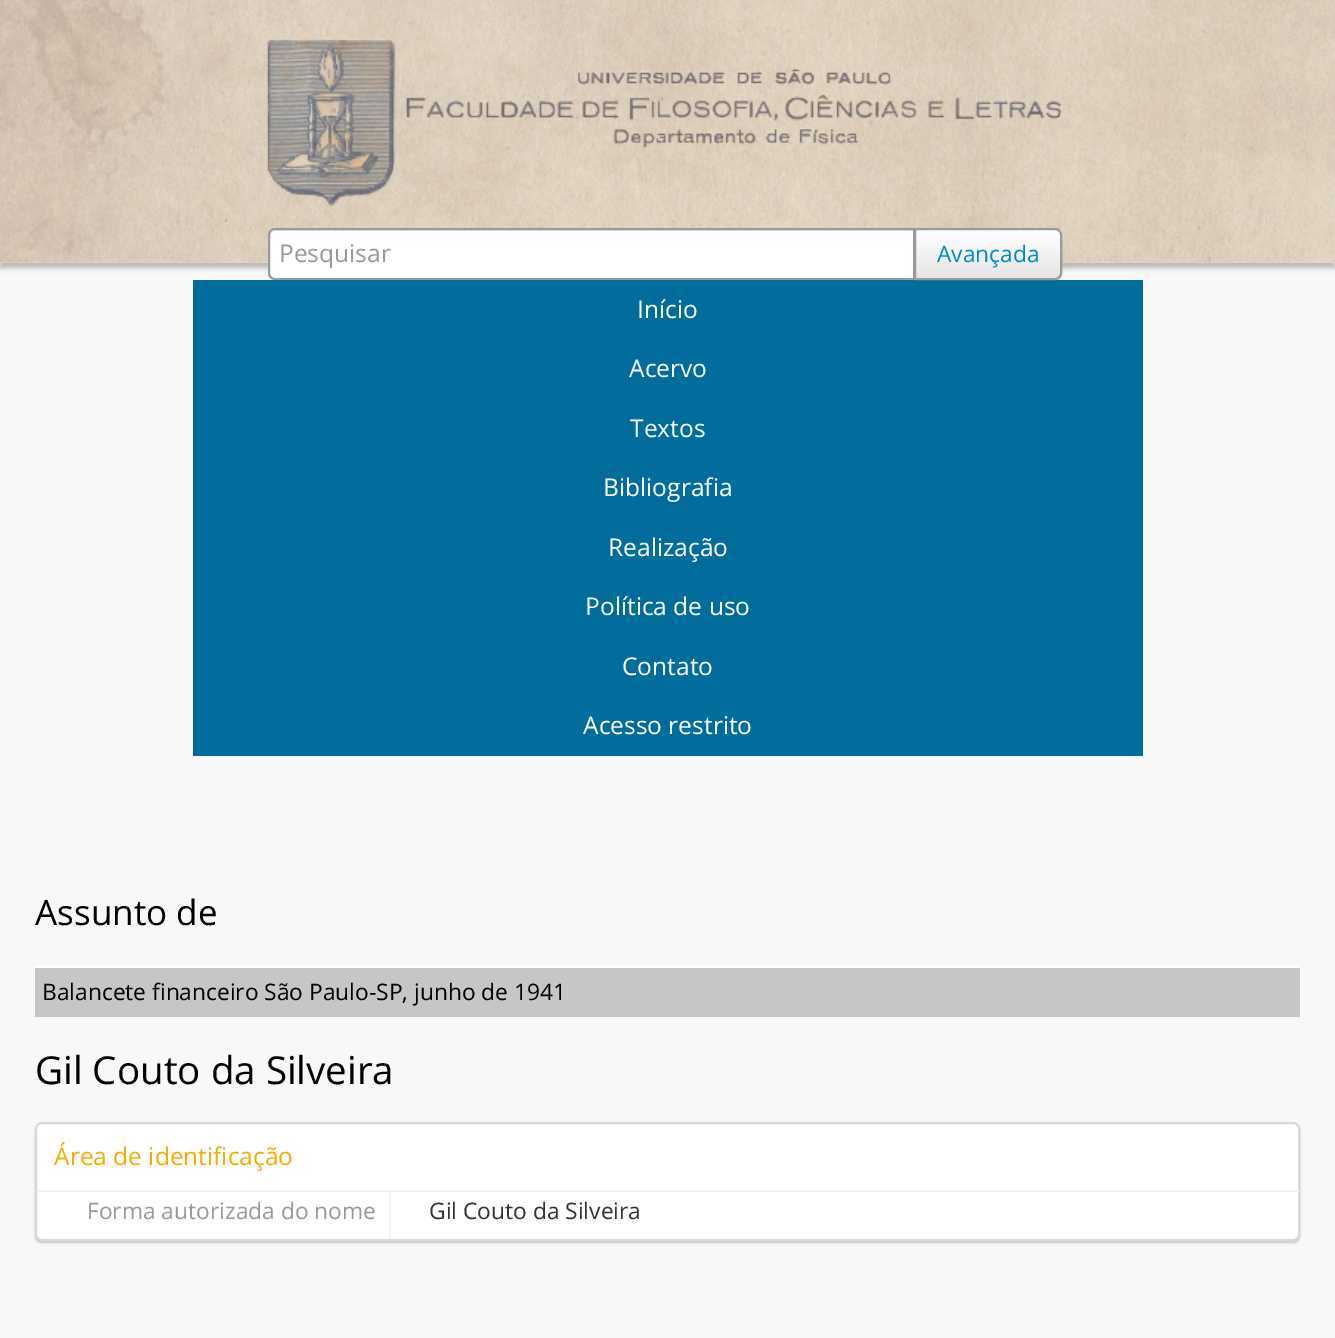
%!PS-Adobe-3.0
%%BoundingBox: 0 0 1335 1338
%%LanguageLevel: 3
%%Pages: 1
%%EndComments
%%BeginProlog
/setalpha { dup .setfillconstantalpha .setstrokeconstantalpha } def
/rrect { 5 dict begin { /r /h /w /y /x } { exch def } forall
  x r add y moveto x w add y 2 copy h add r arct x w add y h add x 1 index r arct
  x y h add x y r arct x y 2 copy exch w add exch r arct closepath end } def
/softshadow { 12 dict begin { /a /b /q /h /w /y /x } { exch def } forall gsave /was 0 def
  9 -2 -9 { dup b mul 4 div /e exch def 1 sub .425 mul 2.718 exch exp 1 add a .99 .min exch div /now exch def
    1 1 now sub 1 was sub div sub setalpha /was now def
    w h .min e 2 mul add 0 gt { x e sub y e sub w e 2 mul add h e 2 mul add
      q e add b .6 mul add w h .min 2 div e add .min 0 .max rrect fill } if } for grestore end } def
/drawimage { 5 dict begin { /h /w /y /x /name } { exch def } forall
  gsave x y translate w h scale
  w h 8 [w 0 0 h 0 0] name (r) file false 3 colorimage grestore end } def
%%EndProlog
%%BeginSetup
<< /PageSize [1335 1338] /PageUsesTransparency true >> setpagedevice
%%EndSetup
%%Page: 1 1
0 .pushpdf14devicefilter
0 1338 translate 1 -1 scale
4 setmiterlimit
0.973 setgray
0 0 1335 1338 rectfill
0 setgray
0 5 1335 263 0 2.5 0.25 softshadow
0.922 0.855 0.788 setrgbcolor
0 262 1335 1 rectfill
(images/1.raw) 0 0 1335 263 drawimage
(images/2.raw) 267 38 795 169 drawimage
1 setgray
newpath 275 228 moveto 915 228 lineto 915 280 lineto 275 280 lineto 271 280 268 277 268 273 curveto 268 235 lineto 268 231 271 228 275 228 curveto closepath fill
0.925 setgray
newpath 275 231 moveto 914 231 lineto 914 229 lineto 275 229 lineto 272 229 270 231 270 234 curveto 270 236 lineto 270 233 272 231 275 231 curveto closepath fill
0.604 setgray
2 setlinewidth
newpath 275 229 moveto 914 229 lineto 914 279 lineto 275 279 lineto 271.5 279 269 276.5 269 273 curveto 269 235 lineto 269 231.5 271.5 229 275 229 curveto closepath stroke
0 0.427 0.612 setrgbcolor
193 280 950 476 rectfill
0 setgray
914 229 148 53 7 2 0.05 softshadow
gsave
newpath 914 228 moveto 1055 228 lineto 1059 228 1062 231 1062 235 curveto 1062 273 lineto 1062 277 1059 280 1055 280 curveto 914 280 lineto closepath clip newpath
gsave newpath 916 229 moveto 1062 229 lineto 1062 278 lineto 916 278 lineto closepath clip newpath
<< /ShadingType 2 /ColorSpace /DeviceRGB /Coords [988 229 988 278] /Extend [true true] /Function << /FunctionType 2 /Domain [0 1] /C0 [1 1 1] /C1 [0.902 0.902 0.902] /N 1 >> >> shfill grestore
grestore
0.2 setalpha
1 setgray
newpath 915 231 moveto 1055 231 lineto 1061 231 1060 238 1060 242 curveto 1060 276 lineto 1061 275 1061 274 1061 273 curveto 1061 234 lineto 1061 231 1059 229 1056 229 curveto 915 229 lineto closepath fill
1 setalpha
0.604 setgray
newpath 915 229 moveto 1055 229 lineto 1058.5 229 1061 231.5 1061 235 curveto 1061 273 lineto 1061 276.5 1058.5 279 1055 279 curveto 915 279 lineto closepath stroke
0.776 setgray
35 968 1265 49 rectfill
1 setgray
35 966 1265 2 rectfill
0 setgray
35 1124 1265 119 7 1 0.2 softshadow
1 setgray
36 1123 1263 117 6 rrect gsave fill grestore
0.851 setgray
stroke
0.949 setgray
37 1190 1262 2 rectfill
389 1192 2 47 rectfill
/OpenSans-Regular [24.5 0 0 -24.5 0 0] selectfont
0.6 setgray
279 262 moveto (Pesquisar) show
/OpenSans-Regular [22.75 0 0 -22.75 0 0] selectfont
0 0.533 0.8 setrgbcolor
937 262 moveto (Avançada) show
/OpenSans-Regular [24.5 0 0 -24.5 0 0] selectfont
1 setgray
637 318 moveto (Início) show
629 377 moveto (Acervo) show
630 437 moveto (Textos) show
603 496 moveto (Bibliografia) show
608 556 moveto (Realização) show
585 615 moveto (Política de uso) show
622 675 moveto (Contato) show
583 734 moveto (Acesso restrito) show
/OpenSans-Regular [35 0 0 -35 0 0] selectfont
0 setgray
35 925 moveto (Assunto de) show
/OpenSans-Regular [22.75 0 0 -22.75 0 0] selectfont
42 1000 moveto (Balancete financeiro São Paulo-SP, junho de 1941) show
/OpenSans-Regular [38.5 0 0 -38.5 0 0] selectfont
35 1084 moveto (Gil Couto da Silveira) show
/OpenSans-Regular [24.5 0 0 -24.5 0 0] selectfont
0.965 0.675 0 setrgbcolor
54 1165 moveto (Área de identificação) show
/OpenSans-Regular [22.75 0 0 -22.75 0 0] selectfont
0.6 setgray
87 1219 moveto (Forma autorizada do nome) show
0.2 setgray
429 1219 moveto (Gil Couto da Silveira) show
.poppdf14devicefilter showpage
%%EOF
